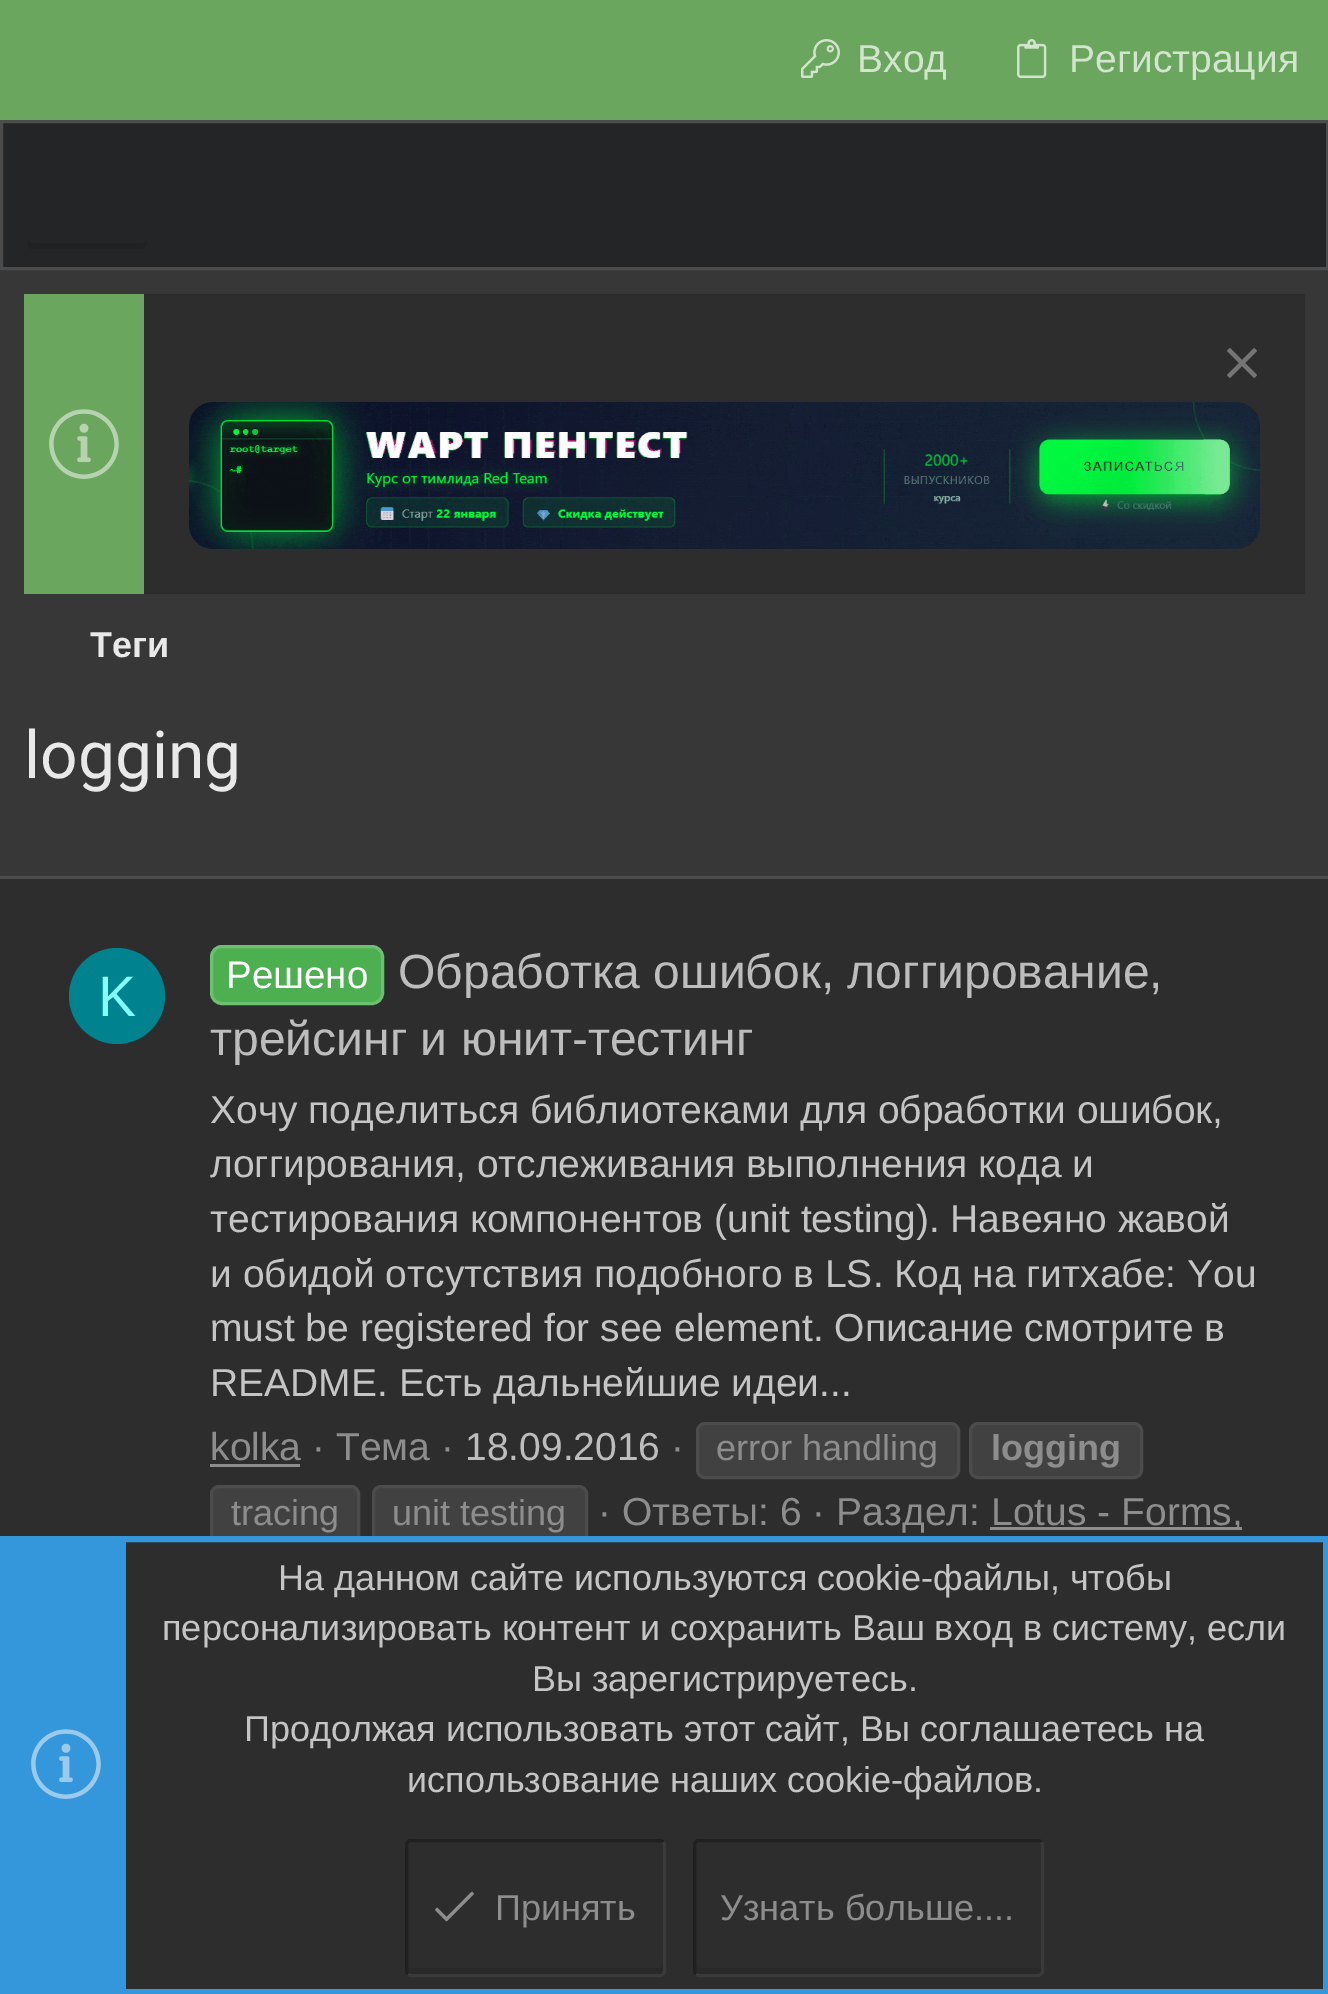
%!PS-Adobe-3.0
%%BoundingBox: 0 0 1328 1994
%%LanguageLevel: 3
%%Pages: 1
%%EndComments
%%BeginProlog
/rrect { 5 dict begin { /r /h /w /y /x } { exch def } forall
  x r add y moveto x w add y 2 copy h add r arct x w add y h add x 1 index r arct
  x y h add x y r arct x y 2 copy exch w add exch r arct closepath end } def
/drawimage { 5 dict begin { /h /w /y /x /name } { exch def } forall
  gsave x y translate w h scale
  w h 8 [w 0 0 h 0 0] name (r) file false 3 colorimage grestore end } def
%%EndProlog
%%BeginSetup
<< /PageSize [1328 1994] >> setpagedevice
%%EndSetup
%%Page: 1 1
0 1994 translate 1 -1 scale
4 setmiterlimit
0.216 setgray
0 0 1328 1994 rectfill
0.42 0.651 0.369 setrgbcolor
0 0 1328 120 rectfill
(images/1.raw) 801 39 39 39 drawimage
(images/2.raw) 1017 39 30 39 drawimage
0.141 0.145 0.149 setrgbcolor
newpath 1.5 121.5 moveto 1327.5 121.5 lineto 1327.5 268.5 lineto 1.5 268.5 lineto closepath gsave fill grestore
0.298 setgray
3 setlinewidth
stroke
0.125 0.129 0.133 setrgbcolor
newpath 27 237 moveto 27 243 lineto 27 246 30 249 33 249 curveto 141 249 lineto 144 249 147 246 147 243 curveto 147 237 lineto 147 240 144 243 141 243 curveto 33 243 lineto 30 243 27 240 27 237 curveto closepath fill
0.176 setgray
144 294 1161 300 rectfill
0.42 0.651 0.369 setrgbcolor
24 294 120 300 rectfill
(images/3.raw) 49 409 70 70 drawimage
(images/4.raw) 1227 348 30 30 drawimage
(images/5.raw) 189 402 1071 147 drawimage
0.176 setgray
0 879 1328 657 rectfill
0.298 setgray
0 876 1328 3 rectfill
0 0.514 0.561 setrgbcolor
newpath 117 996 48 0 360 arc closepath fill
0.298 0.686 0.314 setrgbcolor
211.5 946.5 171 57 10.5 rrect gsave fill grestore
0.431 0.753 0.443 setrgbcolor
stroke
0.553 setgray
210 1464 90 3 rectfill
0.255 setgray
697.5 1423.5 261 54 7.5 rrect gsave fill grestore
0.298 setgray
stroke
0.255 setgray
970.5 1423.5 171 54 7.5 rrect gsave fill grestore
0.298 setgray
stroke
0.255 setgray
211.5 1486.5 147 57 7.5 rrect gsave fill grestore
0.298 setgray
stroke
0.255 setgray
373.5 1486.5 213 57 7.5 rrect gsave fill grestore
0.298 setgray
stroke
0.553 setgray
990 1527 252 3 rectfill
0.176 setgray
126 1542 1197 447 rectfill
0.204 0.592 0.859 setrgbcolor
6 setlinewidth
3 1539 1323 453 rectstroke
6 1542 120 447 rectfill
(images/6.raw) 31 1729 70 70 drawimage
0.161 setgray
newpath 408 1965 moveto 408 1971 lineto 408 1973 409 1974 411 1974 curveto 660 1974 lineto 662 1974 663 1973 663 1971 curveto 663 1965 lineto 663 1967 662 1968 660 1968 curveto 410 1968 lineto 408 1967 lineto closepath fill
0.227 setgray
3 setlinewidth
newpath 663 1842 moveto 664 1842.5 664.5 1844 664.5 1845 curveto 664.5 1971 lineto 664.5 1972 664 1973.5 663 1974 curveto 662.5 1975 661 1975.5 660 1975.5 curveto 411 1975.5 lineto 410 1975.5 408.5 1975 408 1974 curveto stroke
0.125 setgray
newpath 408 1974 moveto 407 1973.5 406.5 1972 406.5 1971 curveto 406.5 1845 lineto 406.5 1844 407 1842.5 408 1842 curveto 408.5 1841 410 1840.5 411 1840.5 curveto 660 1840.5 lineto 661 1840.5 662.5 1841 663 1842 curveto stroke
(images/7.raw) 435 1891 39 31 drawimage
0.161 setgray
newpath 696 1965 moveto 696 1971 lineto 696 1973 697 1974 699 1974 curveto 1038 1974 lineto 1040 1974 1041 1973 1041 1971 curveto 1041 1965 lineto 1041 1967 1040 1968 1038 1968 curveto 699 1968 lineto 697 1968 696 1967 696 1965 curveto closepath fill
0.227 setgray
newpath 1041 1842 moveto 1042 1842.5 1042.5 1844 1042.5 1845 curveto 1042.5 1971 lineto 1042.5 1972 1042 1973.5 1041 1974 curveto 1040.5 1975 1039 1975.5 1038 1975.5 curveto 699 1975.5 lineto 698 1975.5 696.5 1975 696 1974 curveto stroke
0.125 setgray
newpath 696 1974 moveto 695 1973.5 694.5 1972 694.5 1971 curveto 694.5 1845 lineto 694.5 1844 695 1842.5 696 1842 curveto 696.5 1841 698 1840.5 699 1840.5 curveto 1038 1840.5 lineto 1039 1840.5 1040.5 1841 1041 1842 curveto stroke
/LiberationSans-Regular [39 0 0 -39 0 0] selectfont
0.827 0.894 0.812 setrgbcolor
857 72 moveto (Вход) show
1069 72 moveto (Регистрация) show
/LiberationSans-Bold [36 0 0 -36 0 0] selectfont
0.914 setgray
90 657 moveto (Теги) show
/Roboto-Regular [66 0 0 -66 0 0] selectfont
24 778 moveto (logging) show
/LiberationSans-Regular [57 0 0 -57 0 0] selectfont
0.518 1 1 setrgbcolor
98 1016 moveto (K) show
/LiberationSans-Regular [38.5 0 0 -38.5 0 0] selectfont
1 setgray
226 988 moveto (Решено) show
/LiberationSans-Regular [48 0 0 -48 0 0] selectfont
0.741 setgray
398 988 moveto (Обработка ошибок, логгирование,) show
210 1055 moveto (трейсинг и юнит-тестинг) show
/LiberationSans-Regular [39 0 0 -39 0 0] selectfont
0.773 setgray
210 1123 moveto (Хочу поделиться библиотеками для обработки ошибок,) show
210 1177 moveto (логгирования, отслеживания выполнения кода и) show
210 1232 moveto (тестирования компонентов \(unit testing\). Навеяно жавой) show
210 1287 moveto (и обидой отсутствия подобного в LS. Код на гитхабе: You) show
210 1341 moveto (must be registered for see element. Описание смотрите в) show
210 1396 moveto (README. Есть дальнейшие идеи...) show
0.553 setgray
210 1460 moveto (kolka · Тема ·) show
0.741 setgray
465 1460 moveto (18.09.2016) show
0.553 setgray
671 1460 moveto (·) show
/LiberationSans-Regular [36 0 0 -36 0 0] selectfont
716 1460 moveto (error handling) show
/LiberationSans-Bold [36 0 0 -36 0 0] selectfont
991 1460 moveto (logging) show
/LiberationSans-Regular [36 0 0 -36 0 0] selectfont
231 1525 moveto (tracing) show
392 1525 moveto (unit testing) show
/LiberationSans-Regular [39 0 0 -39 0 0] selectfont
598 1525 moveto (· Ответы: 6 · Раздел:) show
991 1525 moveto (Lotus - Forms,) show
/LiberationSans-Regular [36 0 0 -36 0 0] selectfont
0.773 setgray
278 1590 moveto (На данном сайте используются cookie-файлы, чтобы) show
162 1640 moveto (персонализировать контент и сохранить Ваш вход в систему, если) show
532 1691 moveto (Вы зарегистрируетесь.) show
244 1741 moveto (Продолжая использовать этот сайт, Вы соглашаетесь на) show
407 1792 moveto (использование наших cookie-файлов.) show
0.553 setgray
495 1920 moveto (Принять) show
720 1920 moveto (Узнать больше....) show
showpage
%%EOF
